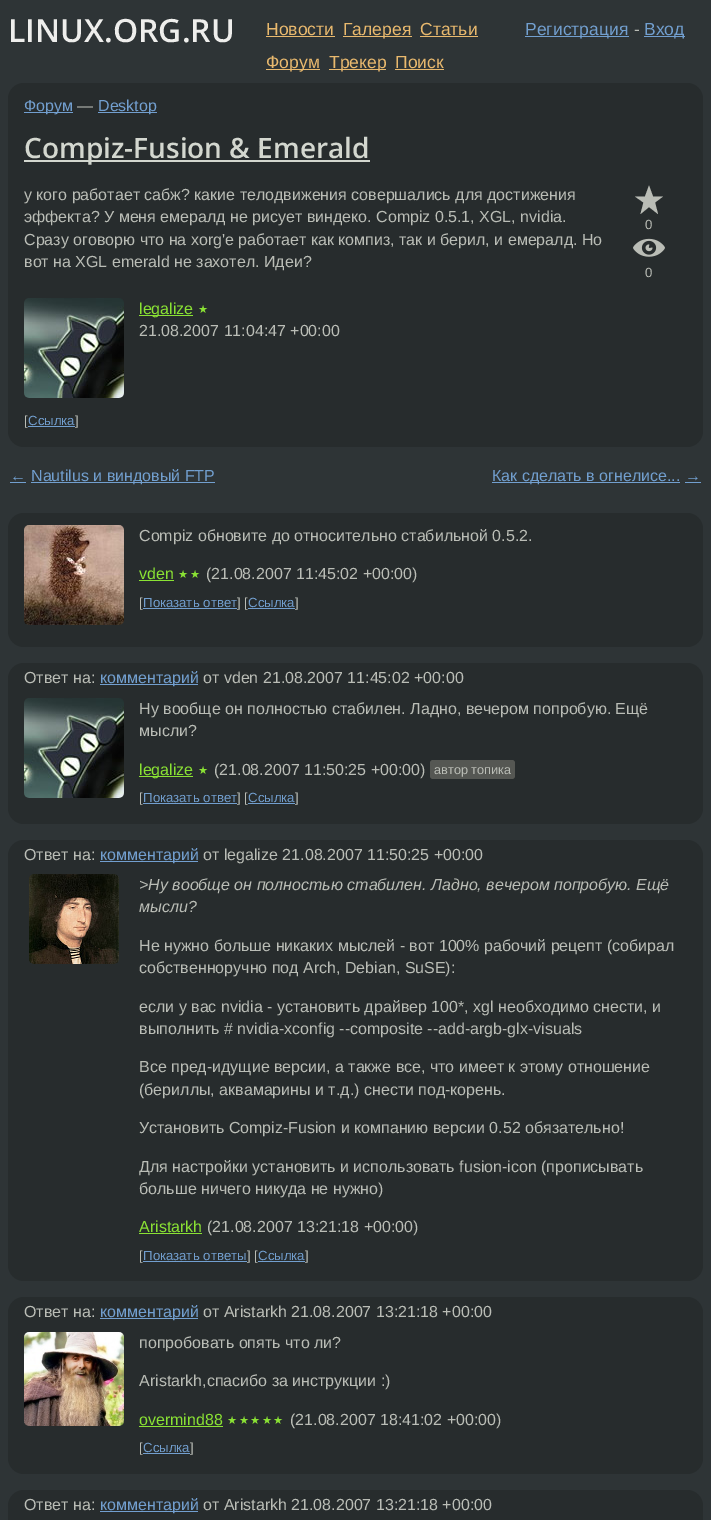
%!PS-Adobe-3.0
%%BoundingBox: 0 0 711 1520
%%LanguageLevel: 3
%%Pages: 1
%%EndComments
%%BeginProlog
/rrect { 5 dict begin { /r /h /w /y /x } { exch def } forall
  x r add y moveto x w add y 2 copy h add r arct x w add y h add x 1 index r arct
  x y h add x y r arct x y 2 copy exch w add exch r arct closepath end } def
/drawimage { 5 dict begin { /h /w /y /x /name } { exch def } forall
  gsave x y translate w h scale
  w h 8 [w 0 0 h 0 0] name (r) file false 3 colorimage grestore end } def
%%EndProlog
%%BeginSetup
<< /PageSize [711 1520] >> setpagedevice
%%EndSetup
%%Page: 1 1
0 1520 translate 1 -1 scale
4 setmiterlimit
0.18 0.204 0.212 setrgbcolor
0 0 711 1520 rectfill
0.914 0.725 0.431 setrgbcolor
266 36 69 1 rectfill
343 36 69 1 rectfill
420 36 58 1 rectfill
266 69 54 1 rectfill
329 69 57 1 rectfill
395 69 49 1 rectfill
0.447 0.624 0.812 setrgbcolor
525 36 104 1 rectfill
644 36 41 1 rectfill
0.153 0.173 0.176 setrgbcolor
8 83 695 364 16 rrect fill
0.447 0.624 0.812 setrgbcolor
24 112 49 1 rectfill
98 112 59 1 rectfill
0.827 0.843 0.812 setrgbcolor
24 160 346 2 rectfill
0.729 0.741 0.714 setrgbcolor
newpath 649 185.5 moveto 653 196.5 lineto 663 196.5 lineto 655 202.5 lineto 658 214 lineto 649 207 lineto 640.5 214 lineto 643.5 202.5 lineto 635 196.5 lineto 645 196.5 lineto closepath fill
(images/1.raw) 633 238 32 19 drawimage
(images/2.raw) 24 298 100 100 drawimage
0.541 0.886 0.204 setrgbcolor
139 315 54 1 rectfill
0.447 0.624 0.812 setrgbcolor
28 426 47 1 rectfill
10 482 16 1 rectfill
31 482 184 1 rectfill
492 482 188 1 rectfill
685 482 16 1 rectfill
0.153 0.173 0.176 setrgbcolor
8 513 695 134 16 rrect fill
(images/3.raw) 24 525 100 100 drawimage
0.541 0.886 0.204 setrgbcolor
139 580 35 1 rectfill
0.447 0.624 0.812 setrgbcolor
143 608 94 1 rectfill
0.153 0.173 0.176 setrgbcolor
8 663 695 161 16 rrect fill
0.447 0.624 0.812 setrgbcolor
100 684 98 1 rectfill
(images/4.raw) 24 698 100 100 drawimage
0.541 0.886 0.204 setrgbcolor
139 776 54 1 rectfill
0.333 0.341 0.325 setrgbcolor
430 760 85 19 3 rrect fill
0.447 0.624 0.812 setrgbcolor
143 803 94 1 rectfill
0.153 0.173 0.176 setrgbcolor
8 840 695 441 16 rrect fill
0.447 0.624 0.812 setrgbcolor
100 861 98 1 rectfill
(images/5.raw) 29 874 90 90 drawimage
0.541 0.886 0.204 setrgbcolor
139 1233 63 1 rectfill
0.447 0.624 0.812 setrgbcolor
143 1261 104 1 rectfill
258 1261 47 1 rectfill
0.153 0.173 0.176 setrgbcolor
8 1297 695 177 16 rrect fill
0.447 0.624 0.812 setrgbcolor
100 1318 98 1 rectfill
(images/6.raw) 24 1332 100 94 drawimage
0.541 0.886 0.204 setrgbcolor
139 1426 84 1 rectfill
0.447 0.624 0.812 setrgbcolor
143 1453 47 1 rectfill
0.153 0.173 0.176 setrgbcolor
8 1490 695 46 16 rrect fill
0.447 0.624 0.812 setrgbcolor
100 1511 98 1 rectfill
/OpenSans-SemiBold [32 0 0 -32 0 0] selectfont
0.933 0.933 0.925 setrgbcolor
8 42 moveto (LINUX.ORG.RU) show
/LiberationSans-Regular [17.5 0 0 -17.5 0 0] selectfont
0.914 0.725 0.431 setrgbcolor
266 35 moveto (Новости) show
343 35 moveto (Галерея) show
420 35 moveto (Статьи) show
266 68 moveto (Форум) show
329 68 moveto (Трекер) show
395 68 moveto (Поиск) show
0.447 0.624 0.812 setrgbcolor
525 35 moveto (Регистрация) show
0.729 0.741 0.714 setrgbcolor
634 35 moveto (-) show
0.447 0.624 0.812 setrgbcolor
644 35 moveto (Вход) show
/LiberationSans-Regular [16 0 0 -16 0 0] selectfont
24 111 moveto (Форум) show
0.729 0.741 0.714 setrgbcolor
77 111 moveto (—) show
0.447 0.624 0.812 setrgbcolor
98 111 moveto (Desktop) show
/OpenSans-SemiBold [28 0 0 -28 0 0] selectfont
0.827 0.843 0.812 setrgbcolor
24 158 moveto (Compiz-Fusion & Emerald) show
/LiberationSans-Regular [16 0 0 -16 0 0] selectfont
0.729 0.741 0.714 setrgbcolor
24 200 moveto (у кого работает сабж? какие телодвижения совершались для достижения) show
24 222 moveto (эффекта? У меня емералд не рисует виндеко. Compiz 0.5.1, XGL, nvidia.) show
24 245 moveto (Сразу оговорю что на xorg'e работает как компиз, так и берил, и емералд. Но) show
24 267 moveto (вот на XGL emerald не захотел. Идеи?) show
/LiberationSans-Regular [13.25 0 0 -13.25 0 0] selectfont
645 229 moveto (0) show
645 277 moveto (0) show
/LiberationSans-Regular [16 0 0 -16 0 0] selectfont
0.541 0.886 0.204 setrgbcolor
139 314 moveto (legalize) show
/DejaVuSans-Regular [11.25 0 0 -11.25 0 0] selectfont
198 313 moveto 1.5 0 (★) ashow
/LiberationSans-Regular [16 0 0 -16 0 0] selectfont
0.729 0.741 0.714 setrgbcolor
139 336 moveto (21.08.2007 11:04:47 +00:00) show
/LiberationSans-Regular [13.25 0 0 -13.25 0 0] selectfont
24 425 moveto ([) show
0.447 0.624 0.812 setrgbcolor
28 425 moveto (Ссылка) show
0.729 0.741 0.714 setrgbcolor
75 425 moveto (]) show
/LiberationSans-Regular [16 0 0 -16 0 0] selectfont
0.447 0.624 0.812 setrgbcolor
10 481 moveto (←) show
31 481 moveto (Nautilus и виндовый FTP) show
492 481 moveto (Как сделать в огнелисе...) show
685 481 moveto (→) show
0.729 0.741 0.714 setrgbcolor
139 541 moveto (Compiz обновите до относительно стабильной 0.5.2.) show
0.541 0.886 0.204 setrgbcolor
139 579 moveto (vden) show
/DejaVuSans-Regular [11.25 0 0 -11.25 0 0] selectfont
178 578 moveto 1.5 0 (★★) ashow
/LiberationSans-Regular [16 0 0 -16 0 0] selectfont
0.729 0.741 0.714 setrgbcolor
206 579 moveto (\(21.08.2007 11:45:02 +00:00\)) show
/LiberationSans-Regular [13.25 0 0 -13.25 0 0] selectfont
139 607 moveto ([) show
0.447 0.624 0.812 setrgbcolor
143 607 moveto (Показать ответ) show
0.729 0.741 0.714 setrgbcolor
237 607 moveto (] [) show
0.447 0.624 0.812 setrgbcolor
248 608 47 1 rectfill
248 607 moveto (Ссылка) show
0.729 0.741 0.714 setrgbcolor
295 607 moveto (]) show
/LiberationSans-Regular [16 0 0 -16 0 0] selectfont
24 683 moveto (Ответ на:) show
0.447 0.624 0.812 setrgbcolor
100 683 moveto (комментарий) show
0.729 0.741 0.714 setrgbcolor
203 683 moveto (от vden 21.08.2007 11:45:02 +00:00) show
139 714 moveto (Ну вообще он полностью стабилен. Ладно, вечером попробую. Ещё) show
139 736 moveto (мысли?) show
0.541 0.886 0.204 setrgbcolor
139 775 moveto (legalize) show
/DejaVuSans-Regular [11.25 0 0 -11.25 0 0] selectfont
198 774 moveto 1.5 0 (★) ashow
/LiberationSans-Regular [16 0 0 -16 0 0] selectfont
0.729 0.741 0.714 setrgbcolor
214 775 moveto (\(21.08.2007 11:50:25 +00:00\)) show
/LiberationSans-Regular [12.75 0 0 -12.75 0 0] selectfont
434 774 moveto (автор топика) show
/LiberationSans-Regular [13.25 0 0 -13.25 0 0] selectfont
139 802 moveto ([) show
0.447 0.624 0.812 setrgbcolor
143 802 moveto (Показать ответ) show
0.729 0.741 0.714 setrgbcolor
237 802 moveto (] [) show
0.447 0.624 0.812 setrgbcolor
248 803 47 1 rectfill
248 802 moveto (Ссылка) show
0.729 0.741 0.714 setrgbcolor
295 802 moveto (]) show
/LiberationSans-Regular [16 0 0 -16 0 0] selectfont
24 860 moveto (Ответ на:) show
0.447 0.624 0.812 setrgbcolor
100 860 moveto (комментарий) show
0.729 0.741 0.714 setrgbcolor
203 860 moveto (от legalize 21.08.2007 11:50:25 +00:00) show
/LiberationSans-Italic [16 0 0 -16 0 0] selectfont
139 890 moveto (>Ну вообще он полностью стабилен. Ладно, вечером попробую. Ещё) show
139 912 moveto (мысли?) show
/LiberationSans-Regular [16 0 0 -16 0 0] selectfont
139 951 moveto (Не нужно больше никаких мыслей - вот 100% рабочий рецепт \(собирал) show
139 973 moveto (собственноручно под Arch, Debian, SuSE\):) show
139 1012 moveto (если у вас nvidia - установить драйвер 100*, xgl необходимо снести, и) show
139 1034 moveto (выполнить # nvidia-xconfig --composite --add-argb-glx-visuals) show
139 1072 moveto (Все пред-идущие версии, а также все, что имеет к этому отношение) show
139 1095 moveto (\(бериллы, аквамарины и т.д.\) снести под-корень.) show
139 1133 moveto (Установить Compiz-Fusion и компанию версии 0.52 обязательно!) show
139 1172 moveto (Для настройки установить и использовать fusion-icon \(прописывать) show
139 1194 moveto (больше ничего никуда не нужно\)) show
0.541 0.886 0.204 setrgbcolor
139 1232 moveto (Aristarkh) show
0.729 0.741 0.714 setrgbcolor
207 1232 moveto (\(21.08.2007 13:21:18 +00:00\)) show
/LiberationSans-Regular [13.25 0 0 -13.25 0 0] selectfont
139 1260 moveto ([) show
0.447 0.624 0.812 setrgbcolor
143 1260 moveto (Показать ответы) show
0.729 0.741 0.714 setrgbcolor
247 1260 moveto (] [) show
0.447 0.624 0.812 setrgbcolor
258 1260 moveto (Ссылка) show
0.729 0.741 0.714 setrgbcolor
305 1260 moveto (]) show
/LiberationSans-Regular [16 0 0 -16 0 0] selectfont
24 1317 moveto (Ответ на:) show
0.447 0.624 0.812 setrgbcolor
100 1317 moveto (комментарий) show
0.729 0.741 0.714 setrgbcolor
203 1317 moveto (от Aristarkh 21.08.2007 13:21:18 +00:00) show
139 1348 moveto (попробовать опять что ли?) show
139 1386 moveto (Aristarkh,спасибо за инструкции :\)) show
0.541 0.886 0.204 setrgbcolor
139 1425 moveto (overmind88) show
/DejaVuSans-Regular [11.25 0 0 -11.25 0 0] selectfont
227 1424 moveto 1.5 0 (★★★★★) ashow
/LiberationSans-Regular [16 0 0 -16 0 0] selectfont
0.729 0.741 0.714 setrgbcolor
290 1425 moveto (\(21.08.2007 18:41:02 +00:00\)) show
/LiberationSans-Regular [13.25 0 0 -13.25 0 0] selectfont
139 1452 moveto ([) show
0.447 0.624 0.812 setrgbcolor
143 1452 moveto (Ссылка) show
0.729 0.741 0.714 setrgbcolor
190 1452 moveto (]) show
/LiberationSans-Regular [16 0 0 -16 0 0] selectfont
24 1510 moveto (Ответ на:) show
0.447 0.624 0.812 setrgbcolor
100 1510 moveto (комментарий) show
0.729 0.741 0.714 setrgbcolor
203 1510 moveto (от Aristarkh 21.08.2007 13:21:18 +00:00) show
showpage
%%EOF
